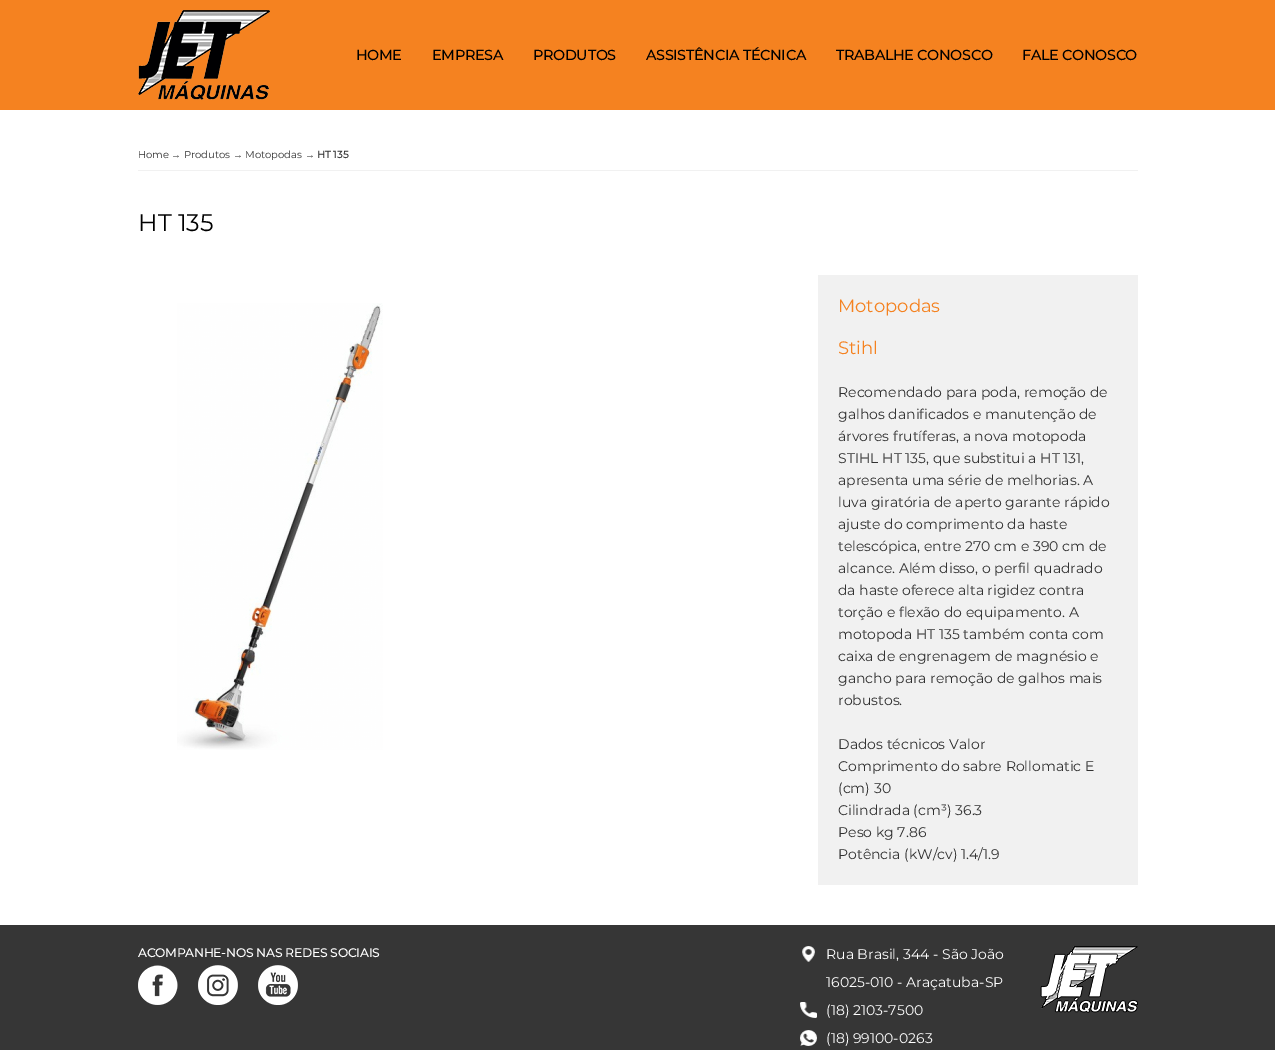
%!PS-Adobe-3.0
%%BoundingBox: 0 0 1275 1050
%%LanguageLevel: 3
%%Pages: 1
%%EndComments
%%BeginProlog
/drawimage { 5 dict begin { /h /w /y /x /name } { exch def } forall
  gsave x y translate w h scale
  w h 8 [w 0 0 h 0 0] name (r) file false 3 colorimage grestore end } def
%%EndProlog
%%BeginSetup
<< /PageSize [1275 1050] >> setpagedevice
%%EndSetup
%%Page: 1 1
0 1050 translate 1 -1 scale
4 setmiterlimit
0.212 setgray
0 0 1275 1050 rectfill
0.961 0.51 0.125 setrgbcolor
0 0 1275 110 rectfill
(images/1.raw) 138 10 132 90 drawimage
1 setgray
0 110 1275 815 rectfill
0.945 setgray
138 170 1000 1 rectfill
(images/2.raw) 177 303 206 447 drawimage
818 275 320 610 rectfill
(images/3.raw) 1040 946 98 67 drawimage
(images/4.raw) 138 965 40 40 drawimage
(images/5.raw) 198 965 40 40 drawimage
(images/6.raw) 258 965 40 40 drawimage
(images/7.raw) 802 946 13 16 drawimage
(images/8.raw) 800 1002 17 16 drawimage
(images/9.raw) 800 1030 17 16 drawimage
/Montserrat-Bold [14 0 0 -14 0 0] selectfont
0 setgray
356 60 moveto (HOME) show
432 60 moveto (EMPRESA) show
533 60 moveto (PRODUTOS) show
646 60 moveto (ASSISTÊNCIA TÉCNICA) show
836 60 moveto (TRABALHE CONOSCO) show
1022 60 moveto (FALE CONOSCO) show
/Montserrat-Thin [10 0 0 -10 0 0] selectfont
0.192 setgray
138 158 moveto (Home) show
/LiberationSans-Regular [10 0 0 -10 0 0] selectfont
171 158 moveto (→) show
/Montserrat-Thin [10 0 0 -10 0 0] selectfont
184 158 moveto (Produtos) show
/LiberationSans-Regular [10 0 0 -10 0 0] selectfont
233 158 moveto (→) show
/Montserrat-Thin [10 0 0 -10 0 0] selectfont
245 158 moveto (Motopodas) show
/LiberationSans-Regular [10 0 0 -10 0 0] selectfont
305 158 moveto (→) show
/Montserrat-Bold [10 0 0 -10 0 0] selectfont
317 158 moveto (HT 135) show
/Montserrat-Thin [24 0 0 -24 0 0] selectfont
0 setgray
138 231 moveto (HT 135) show
/Montserrat-Thin [18 0 0 -18 0 0] selectfont
0.961 0.51 0.125 setrgbcolor
838 312 moveto (Motopodas) show
838 354 moveto (Stihl) show
/Montserrat-Thin [14 0 0 -14 0 0] selectfont
0.192 setgray
838 397 moveto (Recomendado para poda, remoção de) show
838 419 moveto (galhos danificados e manutenção de) show
838 441 moveto (árvores frutíferas, a nova motopoda) show
838 463 moveto (STIHL HT 135, que substitui a HT 131,) show
838 485 moveto (apresenta uma série de melhorias. A) show
838 507 moveto (luva giratória de aperto garante rápido) show
838 529 moveto (ajuste do comprimento da haste) show
838 551 moveto (telescópica, entre 270 cm e 390 cm de) show
838 573 moveto (alcance. Além disso, o perfil quadrado) show
838 595 moveto (da haste oferece alta rigidez contra) show
838 617 moveto (torção e flexão do equipamento. A) show
838 639 moveto (motopoda HT 135 também conta com) show
838 661 moveto (caixa de engrenagem de magnésio e) show
838 683 moveto (gancho para remoção de galhos mais) show
838 705 moveto (robustos.) show
838 749 moveto (Dados técnicos Valor) show
838 771 moveto (Comprimento do sabre Rollomatic E) show
838 793 moveto (\(cm\) 30) show
838 815 moveto (Cilindrada \(cm³\) 36.3) show
838 837 moveto (Peso kg 7.86) show
838 859 moveto (Potência \(kW/cv\) 1.4/1.9) show
/Montserrat-Bold [12 0 0 -12 0 0] selectfont
1 setgray
138 957 moveto (ACOMPANHE-NOS NAS REDES SOCIAIS) show
/Montserrat-Thin [14 0 0 -14 0 0] selectfont
826 959 moveto (Rua Brasil, 344 - São João) show
826 987 moveto (16025-010 - Araçatuba-SP) show
826 1015 moveto (\(18\) 2103-7500) show
826 1043 moveto (\(18\) 99100-0263) show
showpage
%%EOF
